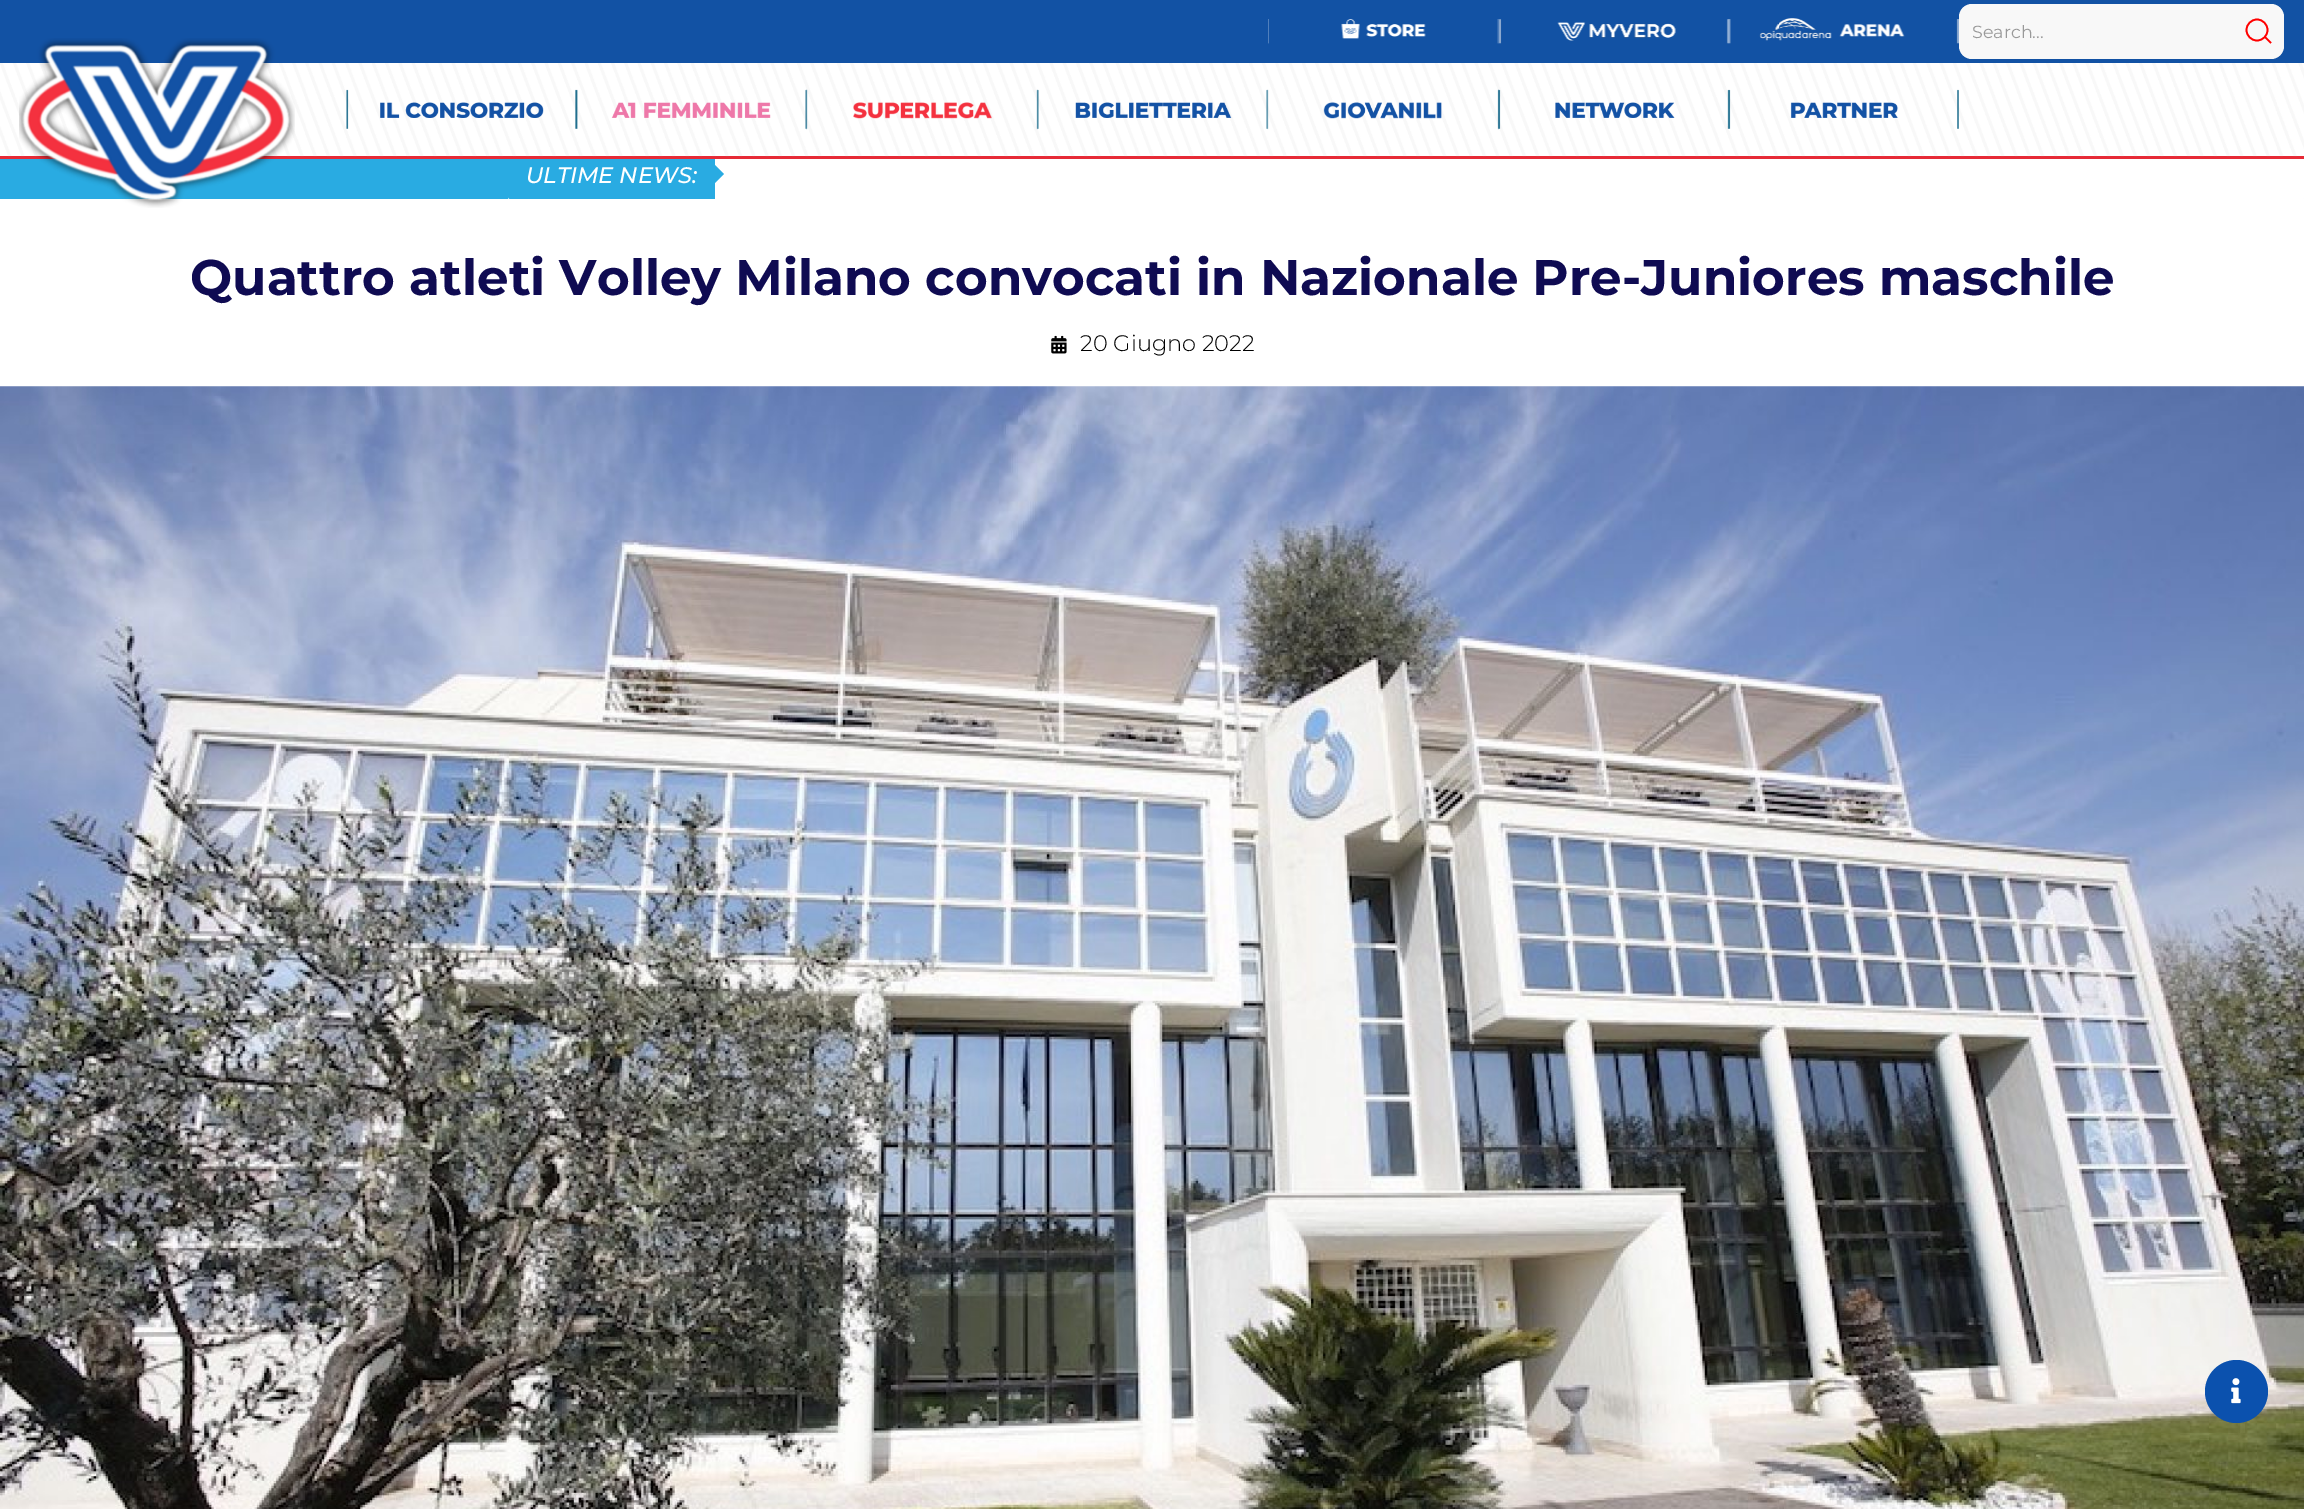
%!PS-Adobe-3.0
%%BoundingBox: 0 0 2304 1509
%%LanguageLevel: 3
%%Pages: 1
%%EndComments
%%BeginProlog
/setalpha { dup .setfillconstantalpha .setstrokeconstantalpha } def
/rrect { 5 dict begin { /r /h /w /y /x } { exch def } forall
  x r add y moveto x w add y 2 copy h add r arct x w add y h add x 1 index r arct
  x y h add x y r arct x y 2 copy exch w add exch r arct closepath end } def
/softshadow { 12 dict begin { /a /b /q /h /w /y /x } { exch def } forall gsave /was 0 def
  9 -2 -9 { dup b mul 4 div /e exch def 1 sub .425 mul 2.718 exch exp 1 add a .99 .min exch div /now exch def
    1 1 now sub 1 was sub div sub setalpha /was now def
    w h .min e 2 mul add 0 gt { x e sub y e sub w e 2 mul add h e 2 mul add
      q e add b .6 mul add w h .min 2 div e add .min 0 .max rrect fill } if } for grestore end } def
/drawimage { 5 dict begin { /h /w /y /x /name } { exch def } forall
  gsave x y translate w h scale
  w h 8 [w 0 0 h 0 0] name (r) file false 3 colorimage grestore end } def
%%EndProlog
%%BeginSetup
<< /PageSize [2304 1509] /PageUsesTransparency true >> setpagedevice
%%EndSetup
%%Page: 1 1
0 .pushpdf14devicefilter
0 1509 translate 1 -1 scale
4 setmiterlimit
1 setgray
0 0 2304 1509 rectfill
0.161 0.671 0.886 setrgbcolor
0 159 2304 40 rectfill
1 setgray
508 149 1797 50 2.5 rrect fill
gsave
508 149 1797 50 rectclip
491 134 32 80 0 7.5 1 softshadow
2290 134 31 80 0 7.5 1 softshadow
grestore
0.161 0.671 0.886 setrgbcolor
newpath 510.5 149 moveto 715 149 lineto 715 199 lineto 510.5 199 lineto 509 199 508 198 508 196.5 curveto 508 151.5 lineto 508 150 509 149 510.5 149 curveto closepath fill
0.902 0.165 0.212 setrgbcolor
0 156 2304 3 rectfill
0.071 0.322 0.643 setrgbcolor
0 0 2304 63 rectfill
(images/1.raw) 1268 19 231 25 drawimage
(images/2.raw) 1499 19 230 25 drawimage
(images/3.raw) 1728 18 231 26 drawimage
0.973 setgray
1959 4 325 55 13 rrect fill
1 0 0 setrgbcolor
1.7 setlinewidth
newpath 2257 30 10.5 0 360 arc closepath stroke
newpath 2265 37 moveto 2271 43 lineto closepath stroke
1 setgray
508 149 207 7 rectfill
(images/5.raw) 0 63 2304 94 drawimage
(images/4.raw) 19 38 276 170 drawimage
(images/6.raw) 346 89 231 40 drawimage
(images/7.raw) 576 89 231 40 drawimage
(images/8.raw) 806 89 232 41 drawimage
(images/9.raw) 1037 89 231 40 drawimage
(images/10.raw) 1267 89 232 41 drawimage
(images/11.raw) 1498 89 231 40 drawimage
(images/12.raw) 1728 89 231 40 drawimage
0.161 0.671 0.886 setrgbcolor
newpath 714 184 moveto 714 164 lineto 724 174 lineto closepath fill
(images/13.raw) 1051 335 16 19 drawimage
(images/14.raw) 0 386 2304 1123 drawimage
0.043 0.318 0.682 setrgbcolor
newpath 2236.5 1391.5 31.5 0 360 arc closepath fill
(images/15.raw) 2231 1378 10 26 drawimage
/Montserrat-Regular [17.5 0 0 -17.5 0 0] selectfont
0.6 setgray
1972 38 moveto (Search...) show
/Montserrat-MediumItalic [22.5 0 0 -22.5 0 0] selectfont
1 setgray
526 183 moveto (ULTIME NEWS:) show
/Montserrat-Bold [50 0 0 -50 0 0] selectfont
0.059 0.043 0.322 setrgbcolor
190 295 moveto (Quattro atleti Volley Milano convocati in Nazionale Pre-Juniores maschile) show
/Montserrat-Light [22.5 0 0 -22.5 0 0] selectfont
0 setgray
1080 351 moveto (20 Giugno 2022) show
.poppdf14devicefilter showpage
%%EOF
